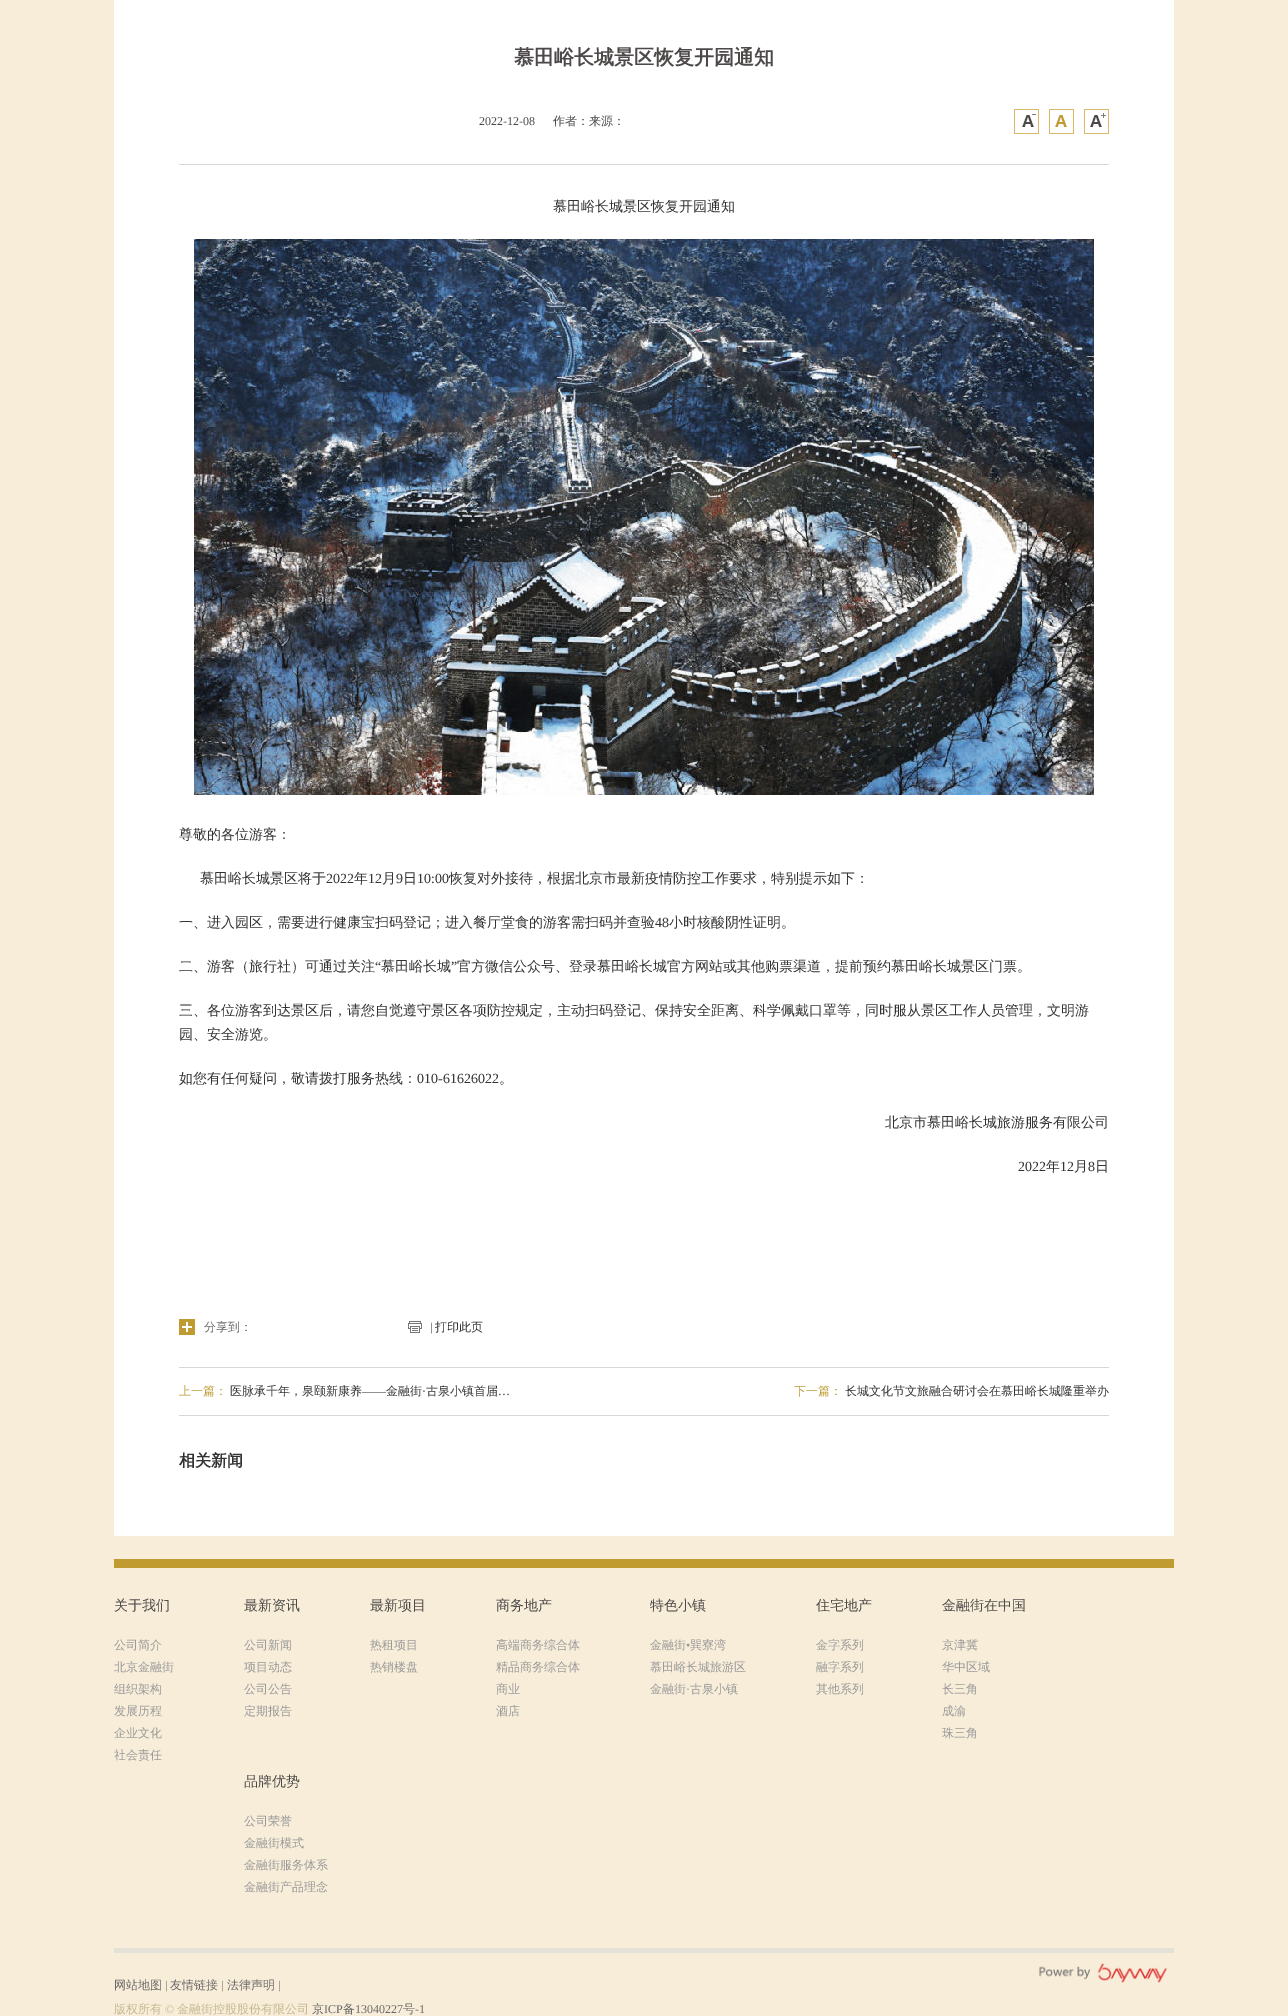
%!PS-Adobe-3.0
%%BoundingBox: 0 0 1288 2016
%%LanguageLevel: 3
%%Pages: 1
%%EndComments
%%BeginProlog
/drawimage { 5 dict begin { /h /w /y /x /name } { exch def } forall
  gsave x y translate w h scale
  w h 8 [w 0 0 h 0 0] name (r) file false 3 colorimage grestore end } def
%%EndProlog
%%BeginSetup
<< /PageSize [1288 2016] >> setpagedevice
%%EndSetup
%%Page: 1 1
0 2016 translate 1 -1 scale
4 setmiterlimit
0.973 0.929 0.851 setrgbcolor
0 0 1288 2016 rectfill
1 setgray
114 0 1060 1536 rectfill
0.843 setgray
179 164 930 1 rectfill
(images/1.raw) 1014 109 25 25 drawimage
(images/2.raw) 1049 109 25 25 drawimage
(images/3.raw) 1084 109 25 25 drawimage
(images/4.raw) 194 239 900 556 drawimage
(images/5.raw) 179 1319 16 16 drawimage
(images/6.raw) 408 1321 14 12 drawimage
179 1367 930 1 rectfill
179 1415 930 1 rectfill
0.753 0.608 0.188 setrgbcolor
114 1559 1060 9 rectfill
0.894 0.882 0.851 setrgbcolor
114 1948 1060 5 rectfill
(images/7.raw) 1039 1963 129 20 drawimage
/WenQuanYiZenHei-Bold [20 0 0 -20 0 0] selectfont
0.298 0.286 0.282 setrgbcolor
514 64 moveto (慕田峪长城景区恢复开园通知) show
/LiberationSerif-Regular [12 0 0 -12 0 0] selectfont
479 125 moveto (2022-12-08) show
/WenQuanYiZenHei-Medium [12 0 0 -12 0 0] selectfont
553 125 moveto (作者：来源：) show
/WenQuanYiZenHei-Medium [14 0 0 -14 0 0] selectfont
0.2 setgray
553 211 moveto (慕田峪长城景区恢复开园通知) show
179 839 moveto (尊敬的各位游客：) show
200 883 moveto (慕田峪长城景区将于) show
/LiberationSerif-Regular [14 0 0 -14 0 0] selectfont
326 883 moveto (2022) show
/WenQuanYiZenHei-Medium [14 0 0 -14 0 0] selectfont
354 883 moveto (年) show
/LiberationSerif-Regular [14 0 0 -14 0 0] selectfont
368 883 moveto (12) show
/WenQuanYiZenHei-Medium [14 0 0 -14 0 0] selectfont
382 883 moveto (月) show
/LiberationSerif-Regular [14 0 0 -14 0 0] selectfont
396 883 moveto (9) show
/WenQuanYiZenHei-Medium [14 0 0 -14 0 0] selectfont
403 883 moveto (日) show
/LiberationSerif-Regular [14 0 0 -14 0 0] selectfont
417 883 moveto (10:00) show
/WenQuanYiZenHei-Medium [14 0 0 -14 0 0] selectfont
449 883 moveto (恢复对外接待，根据北京市最新疫情防控工作要求，特别提示如下：) show
179 927 moveto (一、进入园区，需要进行健康宝扫码登记；进入餐厅堂食的游客需扫码并查验) show
/LiberationSerif-Regular [14 0 0 -14 0 0] selectfont
655 927 moveto (48) show
/WenQuanYiZenHei-Medium [14 0 0 -14 0 0] selectfont
669 927 moveto (小时核酸阴性证明。) show
179 971 moveto (二、游客（旅行社）可通过关注) show
/LiberationSerif-Regular [14 0 0 -14 0 0] selectfont
375 971 moveto (“) show
/WenQuanYiZenHei-Medium [14 0 0 -14 0 0] selectfont
381 971 moveto (慕田峪长城) show
/LiberationSerif-Regular [14 0 0 -14 0 0] selectfont
451 971 moveto (”) show
/WenQuanYiZenHei-Medium [14 0 0 -14 0 0] selectfont
457 971 moveto (官方微信公众号、登录慕田峪长城官方网站或其他购票渠道，提前预约慕田峪长城景区门票。) show
179 1015 moveto (三、各位游客到达景区后，请您自觉遵守景区各项防控规定，主动扫码登记、保持安全距离、科学佩戴口罩等，同时服从景区工作人员管理，文明游) show
179 1039 moveto (园、安全游览。) show
179 1083 moveto (如您有任何疑问，敬请拨打服务热线：) show
/LiberationSerif-Regular [14 0 0 -14 0 0] selectfont
417 1083 moveto (010-61626022) show
/WenQuanYiZenHei-Medium [14 0 0 -14 0 0] selectfont
499 1083 moveto (。) show
885 1127 moveto (北京市慕田峪长城旅游服务有限公司) show
/LiberationSerif-Regular [14 0 0 -14 0 0] selectfont
1018 1171 moveto (2022) show
/WenQuanYiZenHei-Medium [14 0 0 -14 0 0] selectfont
1046 1171 moveto (年) show
/LiberationSerif-Regular [14 0 0 -14 0 0] selectfont
1060 1171 moveto (12) show
/WenQuanYiZenHei-Medium [14 0 0 -14 0 0] selectfont
1074 1171 moveto (月) show
/LiberationSerif-Regular [14 0 0 -14 0 0] selectfont
1088 1171 moveto (8) show
/WenQuanYiZenHei-Medium [14 0 0 -14 0 0] selectfont
1095 1171 moveto (日) show
/WenQuanYiZenHei-Medium [12 0 0 -12 0 0] selectfont
0.4 setgray
204 1331 moveto (分享到：) show
/LiberationSerif-Regular [12 0 0 -12 0 0] selectfont
0.2 setgray
430 1331 moveto (|) show
/WenQuanYiZenHei-Medium [12 0 0 -12 0 0] selectfont
435 1331 moveto (打印此页) show
0.749 0.608 0.192 setrgbcolor
179 1395 moveto (上一篇：) show
0.2 setgray
230 1395 moveto (医脉承千年，泉颐新康养) show
/LiberationSerif-Regular [12 0 0 -12 0 0] selectfont
362 1395 moveto (——) show
/WenQuanYiZenHei-Medium [12 0 0 -12 0 0] selectfont
386 1395 moveto (金融街) show
/LiberationSerif-Regular [12 0 0 -12 0 0] selectfont
422 1395 moveto (·) show
/WenQuanYiZenHei-Medium [12 0 0 -12 0 0] selectfont
426 1395 moveto (古泉小镇首届) show
/LiberationSerif-Regular [12 0 0 -12 0 0] selectfont
498 1395 moveto (…) show
/WenQuanYiZenHei-Medium [12 0 0 -12 0 0] selectfont
0.749 0.608 0.192 setrgbcolor
794 1395 moveto (下一篇：) show
0.2 setgray
845 1395 moveto (长城文化节文旅融合研讨会在慕田峪长城隆重举办) show
/WenQuanYiZenHei-Bold [16 0 0 -16 0 0] selectfont
179 1466 moveto (相关新闻) show
/WenQuanYiZenHei-Medium [14 0 0 -14 0 0] selectfont
0.298 0.286 0.282 setrgbcolor
114 1610 moveto (关于我们) show
/WenQuanYiZenHei-Medium [12 0 0 -12 0 0] selectfont
0.6 setgray
114 1649 moveto (公司简介) show
114 1671 moveto (北京金融街) show
114 1693 moveto (组织架构) show
114 1715 moveto (发展历程) show
114 1737 moveto (企业文化) show
114 1759 moveto (社会责任) show
/WenQuanYiZenHei-Medium [14 0 0 -14 0 0] selectfont
0.298 0.286 0.282 setrgbcolor
244 1610 moveto (最新资讯) show
/WenQuanYiZenHei-Medium [12 0 0 -12 0 0] selectfont
0.6 setgray
244 1649 moveto (公司新闻) show
244 1671 moveto (项目动态) show
244 1693 moveto (公司公告) show
244 1715 moveto (定期报告) show
/WenQuanYiZenHei-Medium [14 0 0 -14 0 0] selectfont
0.298 0.286 0.282 setrgbcolor
370 1610 moveto (最新项目) show
/WenQuanYiZenHei-Medium [12 0 0 -12 0 0] selectfont
0.6 setgray
370 1649 moveto (热租项目) show
370 1671 moveto (热销楼盘) show
/WenQuanYiZenHei-Medium [14 0 0 -14 0 0] selectfont
0.298 0.286 0.282 setrgbcolor
496 1610 moveto (商务地产) show
/WenQuanYiZenHei-Medium [12 0 0 -12 0 0] selectfont
0.6 setgray
496 1649 moveto (高端商务综合体) show
496 1671 moveto (精品商务综合体) show
496 1693 moveto (商业) show
496 1715 moveto (酒店) show
/WenQuanYiZenHei-Medium [14 0 0 -14 0 0] selectfont
0.298 0.286 0.282 setrgbcolor
650 1610 moveto (特色小镇) show
/WenQuanYiZenHei-Medium [12 0 0 -12 0 0] selectfont
0.6 setgray
650 1649 moveto (金融街) show
/LiberationSerif-Regular [12 0 0 -12 0 0] selectfont
686 1649 moveto (•) show
/WenQuanYiZenHei-Medium [12 0 0 -12 0 0] selectfont
690 1649 moveto (巽寮湾) show
650 1671 moveto (慕田峪长城旅游区) show
650 1693 moveto (金融街) show
/LiberationSerif-Regular [12 0 0 -12 0 0] selectfont
686 1693 moveto (·) show
/WenQuanYiZenHei-Medium [12 0 0 -12 0 0] selectfont
690 1693 moveto (古泉小镇) show
/WenQuanYiZenHei-Medium [14 0 0 -14 0 0] selectfont
0.298 0.286 0.282 setrgbcolor
816 1610 moveto (住宅地产) show
/WenQuanYiZenHei-Medium [12 0 0 -12 0 0] selectfont
0.6 setgray
816 1649 moveto (金字系列) show
816 1671 moveto (融字系列) show
816 1693 moveto (其他系列) show
/WenQuanYiZenHei-Medium [14 0 0 -14 0 0] selectfont
0.298 0.286 0.282 setrgbcolor
942 1610 moveto (金融街在中国) show
/WenQuanYiZenHei-Medium [12 0 0 -12 0 0] selectfont
0.6 setgray
942 1649 moveto (京津冀) show
942 1671 moveto (华中区域) show
942 1693 moveto (长三角) show
942 1715 moveto (成渝) show
942 1737 moveto (珠三角) show
/WenQuanYiZenHei-Medium [14 0 0 -14 0 0] selectfont
0.298 0.286 0.282 setrgbcolor
244 1786 moveto (品牌优势) show
/WenQuanYiZenHei-Medium [12 0 0 -12 0 0] selectfont
0.6 setgray
244 1825 moveto (公司荣誉) show
244 1847 moveto (金融街模式) show
244 1869 moveto (金融街服务体系) show
244 1891 moveto (金融街产品理念) show
0.424 0.412 0.412 setrgbcolor
114 1989 moveto (网站地图) show
/LiberationSerif-Regular [12 0 0 -12 0 0] selectfont
165 1989 moveto (|) show
/WenQuanYiZenHei-Medium [12 0 0 -12 0 0] selectfont
170 1989 moveto (友情链接) show
/LiberationSerif-Regular [12 0 0 -12 0 0] selectfont
221 1989 moveto (|) show
/WenQuanYiZenHei-Medium [12 0 0 -12 0 0] selectfont
227 1989 moveto (法律声明) show
/LiberationSerif-Regular [12 0 0 -12 0 0] selectfont
278 1989 moveto (|) show
/WenQuanYiZenHei-Medium [12 0 0 -12 0 0] selectfont
0.773 0.722 0.565 setrgbcolor
114 2013 moveto (版权所有) show
/LiberationSerif-Regular [12 0 0 -12 0 0] selectfont
165 2013 moveto (©) show
/WenQuanYiZenHei-Medium [12 0 0 -12 0 0] selectfont
177 2013 moveto (金融街控股股份有限公司) show
0.424 0.412 0.412 setrgbcolor
312 2013 moveto (京) show
/LiberationSerif-Regular [12 0 0 -12 0 0] selectfont
324 2013 moveto (ICP) show
/WenQuanYiZenHei-Medium [12 0 0 -12 0 0] selectfont
343 2013 moveto (备) show
/LiberationSerif-Regular [12 0 0 -12 0 0] selectfont
355 2013 moveto (13040227) show
/WenQuanYiZenHei-Medium [12 0 0 -12 0 0] selectfont
403 2013 moveto (号) show
/LiberationSerif-Regular [12 0 0 -12 0 0] selectfont
415 2013 moveto (-1) show
showpage
%%EOF
